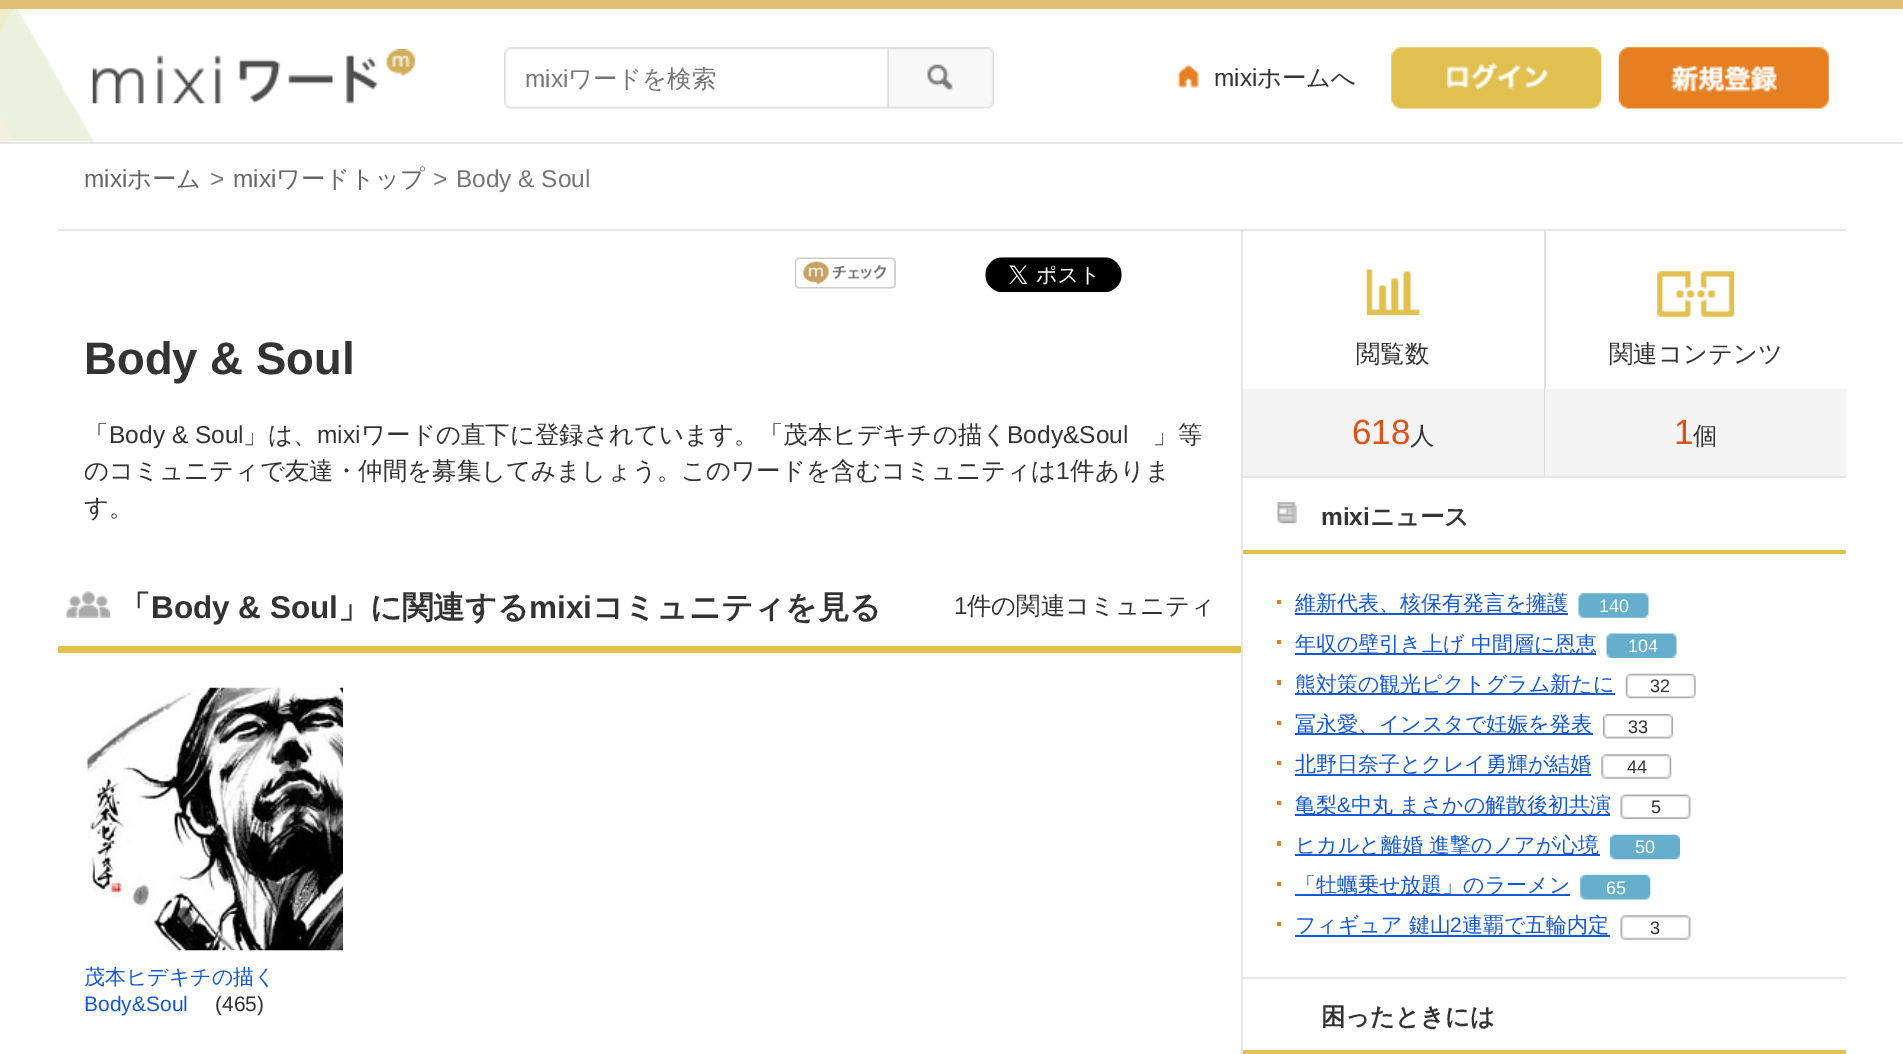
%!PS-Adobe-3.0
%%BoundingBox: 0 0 1903 1054
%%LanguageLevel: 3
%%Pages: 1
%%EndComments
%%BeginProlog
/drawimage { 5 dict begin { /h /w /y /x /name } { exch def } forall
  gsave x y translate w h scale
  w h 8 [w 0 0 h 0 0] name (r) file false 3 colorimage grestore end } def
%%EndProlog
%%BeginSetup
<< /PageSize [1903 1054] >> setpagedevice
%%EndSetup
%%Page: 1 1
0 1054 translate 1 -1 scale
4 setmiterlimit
1 setgray
0 0 1903 1054 rectfill
(images/1.raw) 0 9 95 133 drawimage
0.878 0.753 0.455 setrgbcolor
0 0 1903 9 rectfill
0.902 setgray
0 142 1903 2 rectfill
(images/2.raw) 92 49 324 55 drawimage
(images/3.raw) 504 47 385 62 drawimage
(images/4.raw) 889 47 105 62 drawimage
(images/5.raw) 1177 64 22 24 drawimage
(images/6.raw) 1391 47 211 62 drawimage
(images/7.raw) 1618 47 211 62 drawimage
58 229 1788 2 rectfill
1241 231 2 823 rectfill
(images/8.raw) 794 257 102 32 drawimage
(images/9.raw) 985 257 137 36 drawimage
0.882 0.753 0.31 setrgbcolor
58 646 1183 7 rectfill
(images/10.raw) 66 591 45 27 drawimage
(images/11.raw) 87 687 256 264 drawimage
0.902 setgray
1243 476 603 2 rectfill
0.878 setgray
1544 231 2 245 rectfill
(images/12.raw) 1366 269 54 46 drawimage
0.957 setgray
1243 389 301 87 rectfill
(images/13.raw) 1657 271 78 46 drawimage
1545 389 301 87 rectfill
0.902 setgray
1243 977 603 2 rectfill
(images/14.raw) 1277 502 20 22 drawimage
0.882 0.753 0.31 setrgbcolor
1243 550 603 4 rectfill
0.902 0.494 0.133 setrgbcolor
1277 600 4 4 rectfill
0.082 0.345 0.839 setrgbcolor
1295 613 273 2 rectfill
(images/15.raw) 1578 593 71 25 drawimage
0.902 0.494 0.133 setrgbcolor
1277 640 4 4 rectfill
0.082 0.345 0.839 setrgbcolor
1295 653 301 2 rectfill
(images/16.raw) 1606 633 71 25 drawimage
0.902 0.494 0.133 setrgbcolor
1277 680 4 5 rectfill
0.082 0.345 0.839 setrgbcolor
1295 693 320 2 rectfill
(images/17.raw) 1625 673 71 26 drawimage
0.902 0.494 0.133 setrgbcolor
1277 721 4 4 rectfill
0.082 0.345 0.839 setrgbcolor
1295 733 298 2 rectfill
(images/18.raw) 1603 714 70 25 drawimage
0.902 0.494 0.133 setrgbcolor
1277 761 4 4 rectfill
0.082 0.345 0.839 setrgbcolor
1295 774 296 2 rectfill
(images/19.raw) 1601 754 71 25 drawimage
0.902 0.494 0.133 setrgbcolor
1277 801 4 4 rectfill
0.082 0.345 0.839 setrgbcolor
1295 814 315 2 rectfill
(images/20.raw) 1620 794 71 25 drawimage
0.902 0.494 0.133 setrgbcolor
1277 841 4 5 rectfill
0.082 0.345 0.839 setrgbcolor
1295 854 305 2 rectfill
(images/21.raw) 1610 834 70 26 drawimage
0.902 0.494 0.133 setrgbcolor
1277 882 4 4 rectfill
0.082 0.345 0.839 setrgbcolor
1295 894 275 2 rectfill
(images/22.raw) 1580 875 71 25 drawimage
0.902 0.494 0.133 setrgbcolor
1277 922 4 4 rectfill
0.082 0.345 0.839 setrgbcolor
1295 935 315 2 rectfill
(images/23.raw) 1620 915 71 25 drawimage
0.882 0.753 0.31 setrgbcolor
1243 1050 603 4 rectfill
/LiberationSans-Regular [24.4 0 0 -24.4 0 0] selectfont
0.463 setgray
525 87 moveto (mixi) show
/WenQuanYiZenHei-Medium [24.4 0 0 -24.4 0 0] selectfont
568 87 moveto (ワードを検索) show
/LiberationSans-Regular [24.4 0 0 -24.4 0 0] selectfont
0.2 setgray
1214 86 moveto (mixi) show
/WenQuanYiZenHei-Medium [24.4 0 0 -24.4 0 0] selectfont
1257 86 moveto (ホームへ) show
/LiberationSans-Regular [24.4 0 0 -24.4 0 0] selectfont
0.4 setgray
84 187 moveto (mixi) show
/WenQuanYiZenHei-Medium [24.4 0 0 -24.4 0 0] selectfont
127 187 moveto (ホーム) show
/LiberationSans-Regular [24.4 0 0 -24.4 0 0] selectfont
0.463 setgray
210 187 moveto (>) show
0.4 setgray
233 187 moveto (mixi) show
/WenQuanYiZenHei-Medium [24.4 0 0 -24.4 0 0] selectfont
276 187 moveto (ワードトップ) show
/LiberationSans-Regular [24.4 0 0 -24.4 0 0] selectfont
0.463 setgray
433 187 moveto (>) show
456 187 moveto (Body & Soul) show
/LiberationSans-Bold [45.5 0 0 -45.5 0 0] selectfont
0.2 setgray
84 374 moveto (Body & Soul) show
/WenQuanYiZenHei-Medium [24.5 0 0 -24.5 0 0] selectfont
84 443 moveto (「) show
/LiberationSans-Regular [24.5 0 0 -24.5 0 0] selectfont
109 443 moveto (Body & Soul) show
/WenQuanYiZenHei-Medium [24.5 0 0 -24.5 0 0] selectfont
243 443 moveto (」は、) show
/LiberationSans-Regular [24.5 0 0 -24.5 0 0] selectfont
317 443 moveto (mixi) show
/WenQuanYiZenHei-Medium [24.5 0 0 -24.5 0 0] selectfont
361 443 moveto (ワードの直下に登録されています。「茂本ヒデキチの描く) show
/LiberationSans-Regular [24.5 0 0 -24.5 0 0] selectfont
1007 443 moveto (Body&Soul) show
/WenQuanYiZenHei-Medium [24.5 0 0 -24.5 0 0] selectfont
1153 443 moveto (」等) show
84 479 moveto (のコミュニティで友達・仲間を募集してみましょう。このワードを含むコミュニティは) show
/LiberationSans-Regular [24.5 0 0 -24.5 0 0] selectfont
1056 479 moveto (1) show
/WenQuanYiZenHei-Medium [24.5 0 0 -24.5 0 0] selectfont
1070 479 moveto (件ありま) show
84 516 moveto (す。) show
/WenQuanYiZenHei-Bold [31.5 0 0 -31.5 0 0] selectfont
119 618 moveto (「) show
/LiberationSans-Bold [31.5 0 0 -31.5 0 0] selectfont
151 618 moveto (Body & Soul) show
/WenQuanYiZenHei-Bold [31.5 0 0 -31.5 0 0] selectfont
338 618 moveto (」に関連する) show
/LiberationSans-Bold [31.5 0 0 -31.5 0 0] selectfont
529 618 moveto (mixi) show
/WenQuanYiZenHei-Bold [31.5 0 0 -31.5 0 0] selectfont
592 618 moveto (コミュニティを見る) show
/LiberationSans-Regular [24.4 0 0 -24.4 0 0] selectfont
954 614 moveto (1) show
/WenQuanYiZenHei-Medium [24.4 0 0 -24.4 0 0] selectfont
967 614 moveto (件の関連コミュニティ) show
/WenQuanYiZenHei-Medium [21 0 0 -21 0 0] selectfont
0.082 0.345 0.839 setrgbcolor
84 984 moveto (茂本ヒデキチの描く) show
/LiberationSans-Regular [21 0 0 -21 0 0] selectfont
84 1011 moveto (Body&Soul) show
0.2 setgray
215 1011 moveto (\(465\)) show
/WenQuanYiZenHei-Medium [24.4 0 0 -24.4 0 0] selectfont
1356 362 moveto (閲覧数) show
/LiberationSans-Regular [35 0 0 -35 0 0] selectfont
0.863 0.325 0.098 setrgbcolor
1352 444 moveto (618) show
/WenQuanYiZenHei-Medium [24.4 0 0 -24.4 0 0] selectfont
0.2 setgray
1410 444 moveto (人) show
1609 362 moveto (関連コンテンツ) show
/LiberationSans-Regular [35 0 0 -35 0 0] selectfont
0.863 0.325 0.098 setrgbcolor
1674 444 moveto (1) show
/WenQuanYiZenHei-Medium [24.4 0 0 -24.4 0 0] selectfont
0.2 setgray
1693 444 moveto (個) show
/LiberationSans-Bold [24.4 0 0 -24.4 0 0] selectfont
1321 525 moveto (mixi) show
/WenQuanYiZenHei-Bold [24.4 0 0 -24.4 0 0] selectfont
1370 525 moveto (ニュース) show
/WenQuanYiZenHei-Medium [21 0 0 -21 0 0] selectfont
0.082 0.345 0.839 setrgbcolor
1295 610 moveto (維新代表、核保有発言を擁護) show
/LiberationSans-Regular [18 0 0 -18 0 0] selectfont
1 setgray
1599 612 moveto (140) show
/WenQuanYiZenHei-Medium [21 0 0 -21 0 0] selectfont
0.082 0.345 0.839 setrgbcolor
1295 651 moveto (年収の壁引き上げ 中間層に恩恵) show
/LiberationSans-Regular [18 0 0 -18 0 0] selectfont
1 setgray
1628 652 moveto (104) show
/WenQuanYiZenHei-Medium [21 0 0 -21 0 0] selectfont
0.082 0.345 0.839 setrgbcolor
1295 691 moveto (熊対策の観光ピクトグラム新たに) show
/LiberationSans-Regular [18 0 0 -18 0 0] selectfont
0.2 setgray
1650 692 moveto (32) show
/WenQuanYiZenHei-Medium [21 0 0 -21 0 0] selectfont
0.082 0.345 0.839 setrgbcolor
1295 731 moveto (冨永愛、インスタで妊娠を発表) show
/LiberationSans-Regular [18 0 0 -18 0 0] selectfont
0.2 setgray
1628 733 moveto (33) show
/WenQuanYiZenHei-Medium [21 0 0 -21 0 0] selectfont
0.082 0.345 0.839 setrgbcolor
1295 771 moveto (北野日奈子とクレイ勇輝が結婚) show
/LiberationSans-Regular [18 0 0 -18 0 0] selectfont
0.2 setgray
1627 773 moveto (44) show
/WenQuanYiZenHei-Medium [21 0 0 -21 0 0] selectfont
0.082 0.345 0.839 setrgbcolor
1295 812 moveto (亀梨) show
/LiberationSans-Regular [21 0 0 -21 0 0] selectfont
1337 812 moveto (&) show
/WenQuanYiZenHei-Medium [21 0 0 -21 0 0] selectfont
1351 812 moveto (中丸 まさかの解散後初共演) show
/LiberationSans-Regular [18 0 0 -18 0 0] selectfont
0.2 setgray
1651 813 moveto (5) show
/WenQuanYiZenHei-Medium [21 0 0 -21 0 0] selectfont
0.082 0.345 0.839 setrgbcolor
1295 852 moveto (ヒカルと離婚 進撃のノアが心境) show
/LiberationSans-Regular [18 0 0 -18 0 0] selectfont
1 setgray
1635 853 moveto (50) show
/WenQuanYiZenHei-Medium [21 0 0 -21 0 0] selectfont
0.082 0.345 0.839 setrgbcolor
1295 892 moveto (「牡蠣乗せ放題」のラーメン) show
/LiberationSans-Regular [18 0 0 -18 0 0] selectfont
1 setgray
1606 894 moveto (65) show
/WenQuanYiZenHei-Medium [21 0 0 -21 0 0] selectfont
0.082 0.345 0.839 setrgbcolor
1295 932 moveto (フィギュア 鍵山) show
/LiberationSans-Regular [21 0 0 -21 0 0] selectfont
1450 932 moveto (2) show
/WenQuanYiZenHei-Medium [21 0 0 -21 0 0] selectfont
1462 932 moveto (連覇で五輪内定) show
/LiberationSans-Regular [18 0 0 -18 0 0] selectfont
0.2 setgray
1650 934 moveto (3) show
/WenQuanYiZenHei-Bold [24.4 0 0 -24.4 0 0] selectfont
1321 1025 moveto (困ったときには) show
showpage
%%EOF
